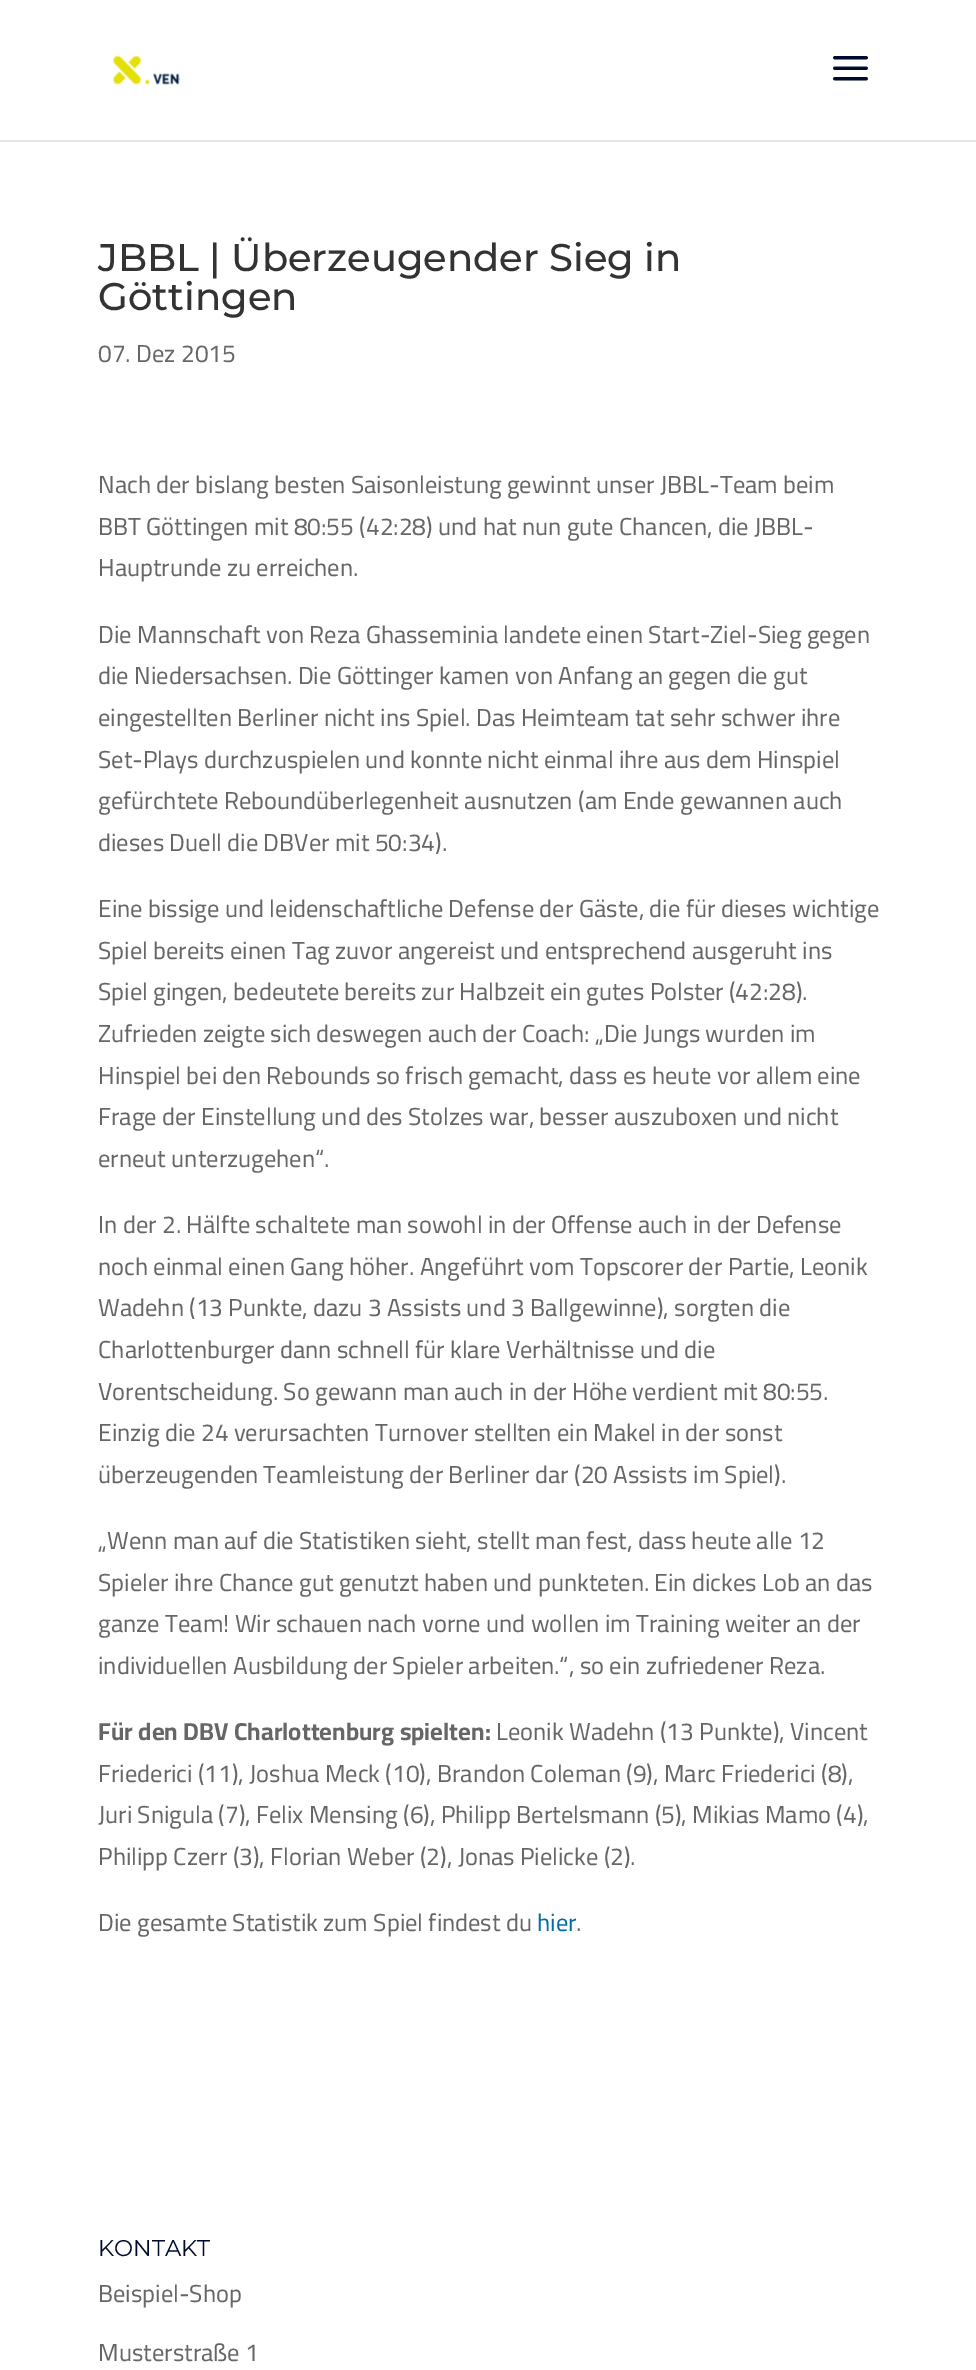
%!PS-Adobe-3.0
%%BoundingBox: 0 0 976 2370
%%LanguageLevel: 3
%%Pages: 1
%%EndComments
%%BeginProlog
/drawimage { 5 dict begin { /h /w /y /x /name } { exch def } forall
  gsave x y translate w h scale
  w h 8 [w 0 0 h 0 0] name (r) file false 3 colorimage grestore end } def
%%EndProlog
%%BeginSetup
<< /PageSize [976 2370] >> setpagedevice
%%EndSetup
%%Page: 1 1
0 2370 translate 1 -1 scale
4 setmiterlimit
1 setgray
0 0 976 2370 rectfill
0.902 setgray
newpath 0 140 moveto 0 142 lineto 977 142 lineto 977 2 lineto 976 2 lineto 976 140 lineto closepath fill
(images/1.raw) 113 55 68 30 drawimage
(images/2.raw) 833 56 35 25 drawimage
/Montserrat-Medium [38.5 0 0 -38.5 0 0] selectfont
0.2 setgray
98 271 moveto (JBBL | Überzeugender Sieg in) show
98 310 moveto (Göttingen) show
/Cairo-Regular [24.5 0 0 -24.5 0 0] selectfont
0.4 setgray
98 362 moveto (07. Dez 2015) show
98 493 moveto (Nach der bislang besten Saisonleistung gewinnt unser JBBL-Team beim) show
98 535 moveto (BBT Göttingen mit 80:55 \(42:28\) und hat nun gute Chancen, die JBBL-) show
98 576 moveto (Hauptrunde zu erreichen.) show
98 643 moveto (Die Mannschaft von Reza Ghasseminia landete einen Start-Ziel-Sieg gegen) show
98 684 moveto (die Niedersachsen. Die Göttinger kamen von Anfang an gegen die gut) show
98 726 moveto (eingestellten Berliner nicht ins Spiel. Das Heimteam tat sehr schwer ihre) show
98 768 moveto (Set-Plays durchzuspielen und konnte nicht einmal ihre aus dem Hinspiel) show
98 809 moveto (gefürchtete Reboundüberlegenheit ausnutzen \(am Ende gewannen auch) show
98 851 moveto (dieses Duell die DBVer mit 50:34\).) show
98 917 moveto (Eine bissige und leidenschaftliche Defense der Gäste, die für dieses wichtige) show
98 959 moveto (Spiel bereits einen Tag zuvor angereist und entsprechend ausgeruht ins) show
98 1000 moveto (Spiel gingen, bedeutete bereits zur Halbzeit ein gutes Polster \(42:28\).) show
98 1042 moveto (Zufrieden zeigte sich deswegen auch der Coach: „Die Jungs wurden im) show
98 1084 moveto (Hinspiel bei den Rebounds so frisch gemacht, dass es heute vor allem eine) show
98 1125 moveto (Frage der Einstellung und des Stolzes war, besser auszuboxen und nicht) show
98 1167 moveto (erneut unterzugehen“.) show
98 1233 moveto (In der 2. Hälfte schaltete man sowohl in der Offense auch in der Defense) show
98 1275 moveto (noch einmal einen Gang höher. Angeführt vom Topscorer der Partie, Leonik) show
98 1316 moveto (Wadehn \(13 Punkte, dazu 3 Assists und 3 Ballgewinne\), sorgten die) show
98 1358 moveto (Charlottenburger dann schnell für klare Verhältnisse und die) show
98 1400 moveto (Vorentscheidung. So gewann man auch in der Höhe verdient mit 80:55.) show
98 1441 moveto (Einzig die 24 verursachten Turnover stellten ein Makel in der sonst) show
98 1483 moveto (überzeugenden Teamleistung der Berliner dar \(20 Assists im Spiel\).) show
98 1549 moveto („Wenn man auf die Statistiken sieht, stellt man fest, dass heute alle 12) show
98 1591 moveto (Spieler ihre Chance gut genutzt haben und punkteten. Ein dickes Lob an das) show
98 1632 moveto (ganze Team! Wir schauen nach vorne und wollen im Training weiter an der) show
98 1674 moveto (individuellen Ausbildung der Spieler arbeiten.“, so ein zufriedener Reza.) show
/Cairo-Bold [24.5 0 0 -24.5 0 0] selectfont
98 1740 moveto (Für den DBV Charlottenburg spielten:) show
/Cairo-Regular [24.5 0 0 -24.5 0 0] selectfont
496 1740 moveto (Leonik Wadehn \(13 Punkte\), Vincent) show
98 1782 moveto (Friederici \(11\), Joshua Meck \(10\), Brandon Coleman \(9\), Marc Friederici \(8\),) show
98 1823 moveto (Juri Snigula \(7\), Felix Mensing \(6\), Philipp Bertelsmann \(5\), Mikias Mamo \(4\),) show
98 1865 moveto (Philipp Czerr \(3\), Florian Weber \(2\), Jonas Pielicke \(2\).) show
98 1931 moveto (Die gesamte Statistik zum Spiel findest du) show
0 0.431 0.639 setrgbcolor
537 1931 moveto (hier) show
0.4 setgray
576 1931 moveto (.) show
/Montserrat-Regular [22.75 0 0 -22.75 0 0] selectfont
0 0.039 0.176 setrgbcolor
98 2256 moveto (KONTAKT) show
/Cairo-Regular [24.5 0 0 -24.5 0 0] selectfont
0.4 setgray
98 2302 moveto (Beispiel-Shop) show
98 2361 moveto (Musterstraße 1) show
showpage
%%EOF
